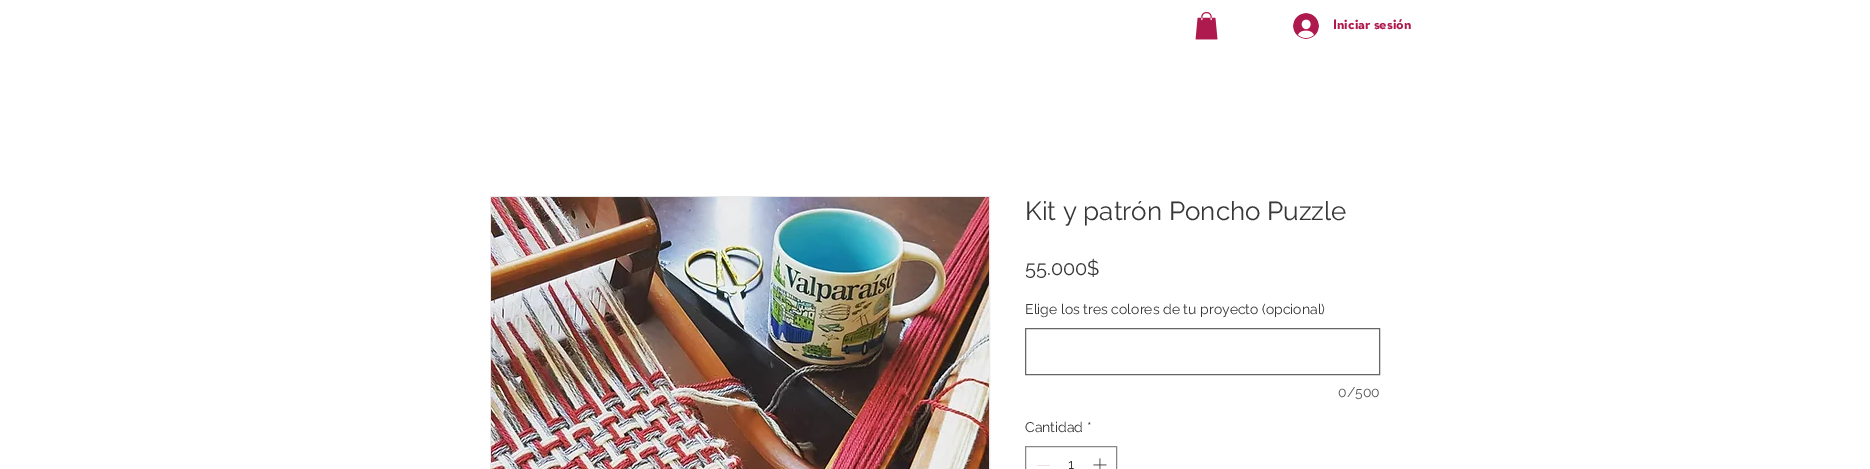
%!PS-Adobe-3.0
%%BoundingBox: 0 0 1870 469
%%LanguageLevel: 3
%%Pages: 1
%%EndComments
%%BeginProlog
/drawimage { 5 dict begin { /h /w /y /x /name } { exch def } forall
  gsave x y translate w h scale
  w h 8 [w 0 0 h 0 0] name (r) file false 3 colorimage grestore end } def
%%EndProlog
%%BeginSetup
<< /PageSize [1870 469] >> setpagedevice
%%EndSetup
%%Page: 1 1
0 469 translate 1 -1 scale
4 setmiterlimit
1 setgray
0 0 1870 469 rectfill
(images/1.raw) 1195 12 23 28 drawimage
(images/2.raw) 1293 13 26 26 drawimage
0.914 setgray
490.5 196.5 499 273 rectstroke
(images/3.raw) 491 197 498 272 drawimage
0.4 setgray
1025.5 328.5 354 46 rectstroke
0.533 setgray
1025.5 446.5 91 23 rectstroke
0.89 setgray
1037 465 13 1 rectfill
(images/4.raw) 1093 458 14 11 drawimage
/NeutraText-Bold [14 0 0 -14 0 0] selectfont
0.686 0.102 0.306 setrgbcolor
1333 29 moveto (Iniciar sesión) show
/Raleway-Regular [26 0 0 -26 0 0] selectfont
0.22 setgray
1025 220 moveto (Kit y patrón Poncho Puzzle) show
/Raleway-Regular [20 0 0 -20 0 0] selectfont
1025 275 moveto (55.000$) show
/Raleway-Regular [14 0 0 -14 0 0] selectfont
1025 314 moveto (Elige los tres colores de tu proyecto \(opcional\)) show
0.349 setgray
1338 397 moveto (0/500) show
0.22 setgray
1025 432 moveto (Cantidad) show
1087 432 moveto (*) show
1068 469 moveto (1) show
showpage
%%EOF
